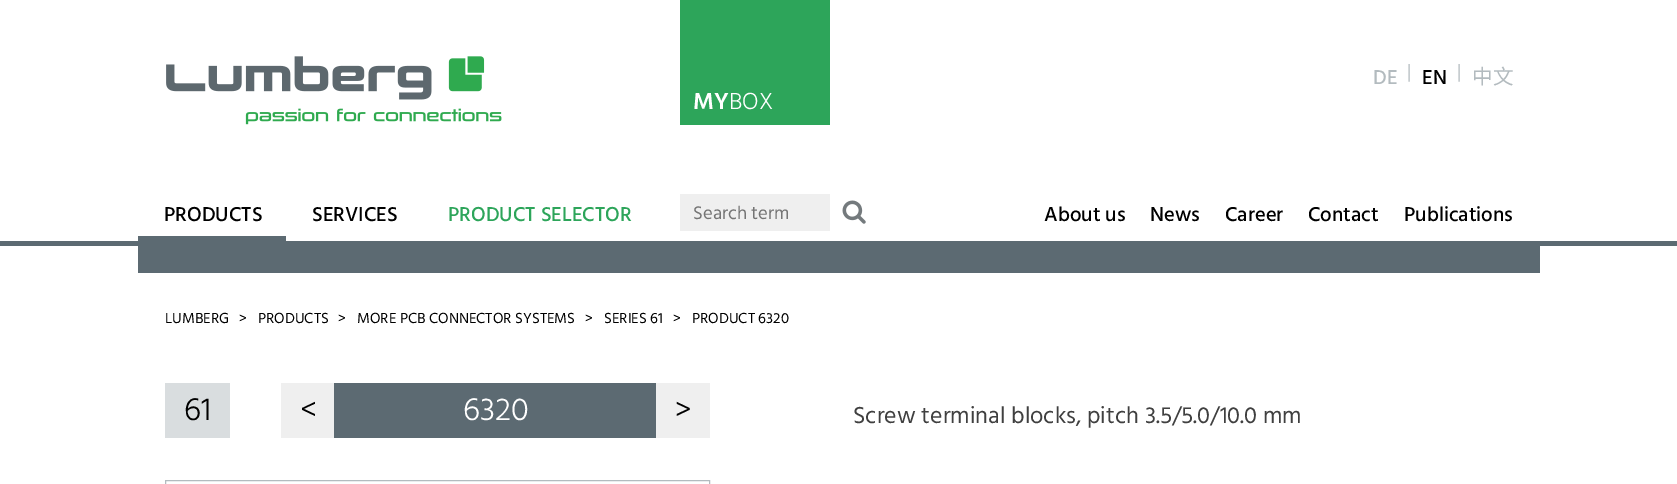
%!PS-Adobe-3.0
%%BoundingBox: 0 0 1677 484
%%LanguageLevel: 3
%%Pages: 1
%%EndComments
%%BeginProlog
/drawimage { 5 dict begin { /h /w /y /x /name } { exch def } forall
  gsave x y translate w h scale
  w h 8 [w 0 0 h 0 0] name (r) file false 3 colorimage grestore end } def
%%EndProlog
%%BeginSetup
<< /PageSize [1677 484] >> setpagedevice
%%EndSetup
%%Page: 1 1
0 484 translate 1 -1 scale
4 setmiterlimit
1 setgray
0 0 1677 484 rectfill
0.361 0.416 0.447 setrgbcolor
0 241 1677 5 rectfill
(images/1.raw) 166 56 336 69 drawimage
0.176 0.647 0.353 setrgbcolor
680 0 150 125 rectfill
0.361 0.416 0.447 setrgbcolor
138 236 148 5 rectfill
138 246 1402 27 rectfill
0.937 setgray
680 194 150 37 rectfill
(images/2.raw) 842 200 24 24 drawimage
0.851 0.867 0.875 setrgbcolor
165 383 65 55 rectfill
0.937 setgray
281 383 53 55 rectfill
0.361 0.416 0.447 setrgbcolor
334 383 322 55 rectfill
0.937 setgray
656 383 54 55 rectfill
0.702 0.733 0.749 setrgbcolor
165.5 480.5 544 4 rectstroke
/Hind-Medium [20.6 0 0 -20.6 0 0] selectfont
1373 84 moveto (DE) show
/Hind-Light [20 0 0 -20 0 0] selectfont
1407 78 moveto (|) show
/Hind-Medium [20.6 0 0 -20.6 0 0] selectfont
0 setgray
1422 84 moveto (EN) show
/Hind-Light [20 0 0 -20 0 0] selectfont
0.702 0.733 0.749 setrgbcolor
1457 78 moveto (|) show
/NotoSansCJKSC-Regular [20.6 0 0 -20.6 0 0] selectfont
1472 84 moveto (中文) show
/Hind-SemiBold [23.75 0 0 -23.75 0 0] selectfont
1 setgray
693 109 moveto (MY) show
/Hind-Light [23.75 0 0 -23.75 0 0] selectfont
729 109 moveto (BOX) show
/Hind-Medium [20.6 0 0 -20.6 0 0] selectfont
0 setgray
164 221 moveto (PRODUCTS) show
312 221 moveto (SERVICES) show
0.176 0.647 0.353 setrgbcolor
448 221 moveto (PRODUCT SELECTOR) show
/Hind-Regular [18.75 0 0 -18.75 0 0] selectfont
0.459 setgray
693 219 moveto (Search term) show
/Hind-Medium [20.6 0 0 -20.6 0 0] selectfont
0 setgray
1044 221 moveto (About us) show
1150 221 moveto (News) show
1225 221 moveto (Career) show
1308 221 moveto (Contact) show
1404 221 moveto (Publications) show
/Hind-Regular [15 0 0 -15 0 0] selectfont
165 323 moveto (LUMBERG) show
239 323 moveto (>) show
258 323 moveto (PRODUCTS) show
338 323 moveto (>) show
357 323 moveto (MORE PCB CONNECTOR SYSTEMS) show
585 323 moveto (>) show
604 323 moveto (SERIES 61) show
673 323 moveto (>) show
692 323 moveto (PRODUCT 6320) show
/Hind-Light [32.5 0 0 -32.5 0 0] selectfont
184 420 moveto (61) show
300 420 moveto (<) show
1 setgray
463 420 moveto (6320) show
0 setgray
675 420 moveto (>) show
/Hind-Regular [23.75 0 0 -23.75 0 0] selectfont
0.251 setgray
853 423 moveto (Screw terminal blocks, pitch 3.5/5.0/10.0 mm) show
showpage
%%EOF
